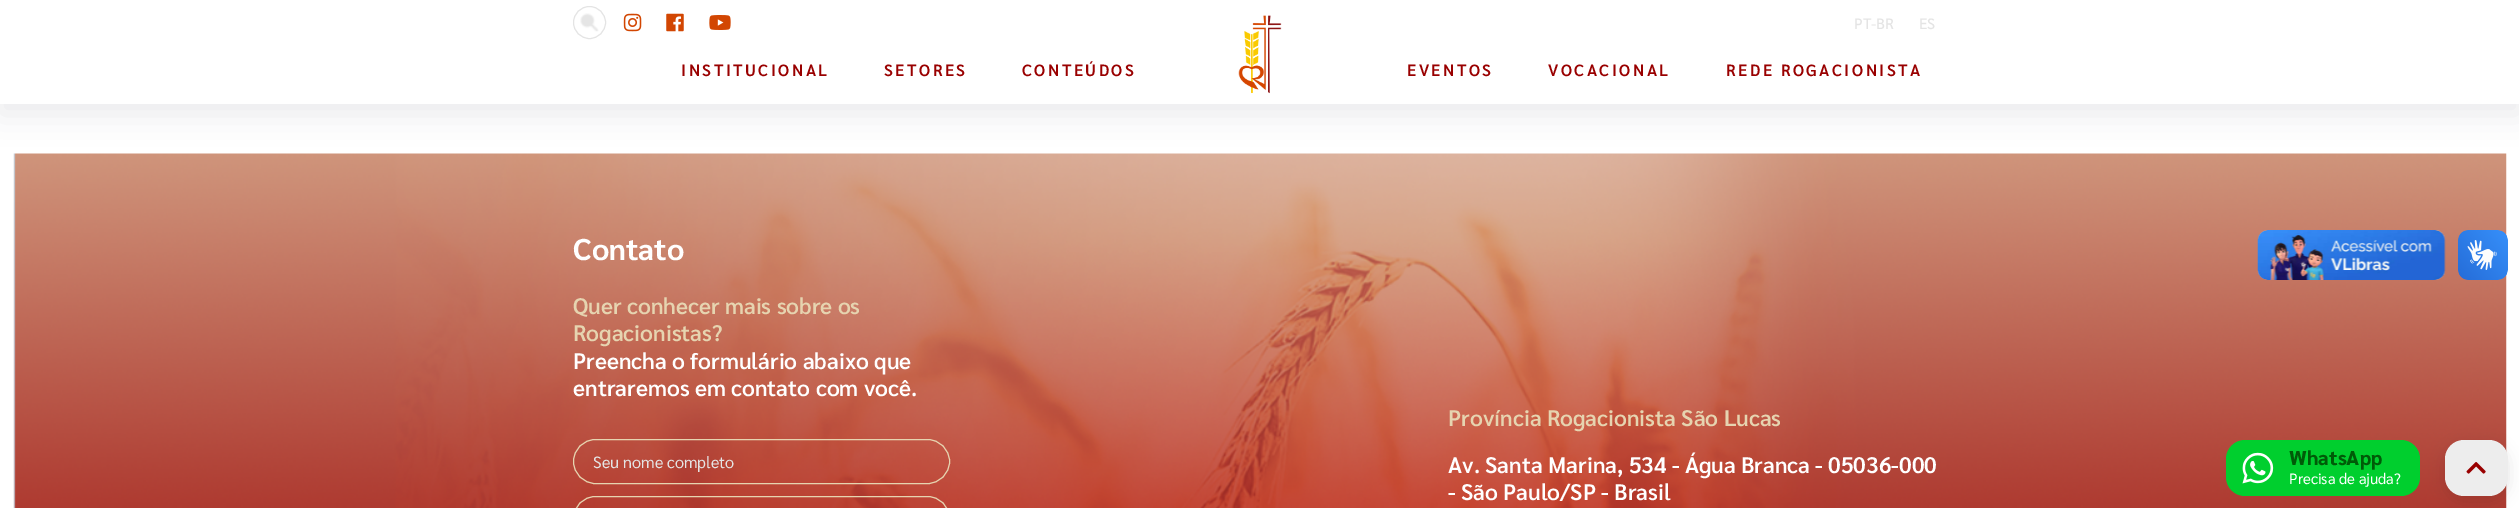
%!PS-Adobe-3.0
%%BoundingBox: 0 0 2519 508
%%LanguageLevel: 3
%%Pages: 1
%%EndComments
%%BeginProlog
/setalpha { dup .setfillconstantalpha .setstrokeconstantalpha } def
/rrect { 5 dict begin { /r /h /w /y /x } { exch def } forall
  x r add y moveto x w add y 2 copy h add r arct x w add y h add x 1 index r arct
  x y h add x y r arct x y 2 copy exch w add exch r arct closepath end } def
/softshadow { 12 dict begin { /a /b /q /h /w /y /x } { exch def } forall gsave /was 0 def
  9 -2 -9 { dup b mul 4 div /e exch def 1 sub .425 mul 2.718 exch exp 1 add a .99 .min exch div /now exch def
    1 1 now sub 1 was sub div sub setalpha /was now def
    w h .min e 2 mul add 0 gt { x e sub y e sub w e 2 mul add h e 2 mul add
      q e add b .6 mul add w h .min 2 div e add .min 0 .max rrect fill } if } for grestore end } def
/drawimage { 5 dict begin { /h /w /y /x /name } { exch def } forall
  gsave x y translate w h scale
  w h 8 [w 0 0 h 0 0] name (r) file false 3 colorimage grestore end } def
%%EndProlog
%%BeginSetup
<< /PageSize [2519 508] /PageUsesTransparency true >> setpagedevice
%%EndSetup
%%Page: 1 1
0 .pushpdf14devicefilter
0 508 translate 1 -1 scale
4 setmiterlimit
1 setgray
0 0 2519 508 rectfill
(images/6.raw) 13 153 2494 355 drawimage
0.584 0.616 0.647 setrgbcolor
0 10 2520 104 0 15 0.2 softshadow
1 setgray
0 0 2519 104 rectfill
(images/1.raw) 580 13 19 19 drawimage
0.894 setgray
newpath 589.5 22.5 16 0 360 arc closepath stroke
(images/2.raw) 623 13 19 19 drawimage
(images/3.raw) 666 13 18 19 drawimage
(images/4.raw) 709 15 22 15 drawimage
(images/5.raw) 1238 15 44 79 drawimage
0.902 0.831 0.69 setrgbcolor
573.5 439.5 376 44 22 rrect stroke
573.5 496.5 376 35 22 rrect stroke
0 0.812 0.18 setrgbcolor
2226 440 194 56 19 rrect fill
(images/7.raw) 2257 230 189 50 drawimage
(images/8.raw) 2458 230 50 50 drawimage
(images/9.raw) 2242 452 32 32 drawimage
0 setgray
2445 445 63 56 19 7.5 0.1 softshadow
0.929 setgray
2445 440 63 56 19 rrect fill
(images/10.raw) 2466 462 20 12 drawimage
/Sarabun-Medium [15 0 0 -15 0 0] selectfont
0.894 setgray
1854 29 moveto (PT-BR) show
1919 29 moveto (ES) show
/Sarabun-SemiBold [16.25 0 0 -16.25 0 0] selectfont
0.6 0 0 setrgbcolor
681 76 moveto 2.5 0 (INSTITUCIONAL) ashow
884 76 moveto 2.5 0 (SETORES) ashow
1022 76 moveto 2.5 0 (CONTEÚDOS) ashow
1407 76 moveto 2.5 0 (EVENTOS) ashow
1548 76 moveto 2.5 0 (VOCACIONAL) ashow
1726 76 moveto 2.5 0 (REDE ROGACIONISTA) ashow
/Sarabun-Bold [30 0 0 -30 0 0] selectfont
1 setgray
573 260 moveto (Contato) show
/Sarabun-SemiBold [22.5 0 0 -22.5 0 0] selectfont
0.902 0.831 0.69 setrgbcolor
573 314 moveto (Quer conhecer mais sobre os) show
573 341 moveto (Rogacionistas?) show
1 setgray
573 369 moveto (Preencha o formulário abaixo que) show
573 396 moveto (entraremos em contato com você.) show
/Sarabun-Regular [16.25 0 0 -16.25 0 0] selectfont
0.894 setgray
593 468 moveto (Seu nome completo) show
/Sarabun-SemiBold [22.5 0 0 -22.5 0 0] selectfont
0.902 0.831 0.69 setrgbcolor
1448 426 moveto (Província Rogacionista São Lucas) show
1 setgray
1448 473 moveto (Av. Santa Marina, 534 - Água Branca - 05036-000) show
1448 500 moveto (- São Paulo/SP - Brasil) show
/Sarabun-ExtraBold [20 0 0 -20 0 0] selectfont
0 0.357 0.031 setrgbcolor
2289 465 moveto (WhatsApp) show
/Sarabun-Regular [15 0 0 -15 0 0] selectfont
1 setgray
2289 484 moveto (Precisa de ajuda?) show
.poppdf14devicefilter showpage
%%EOF
